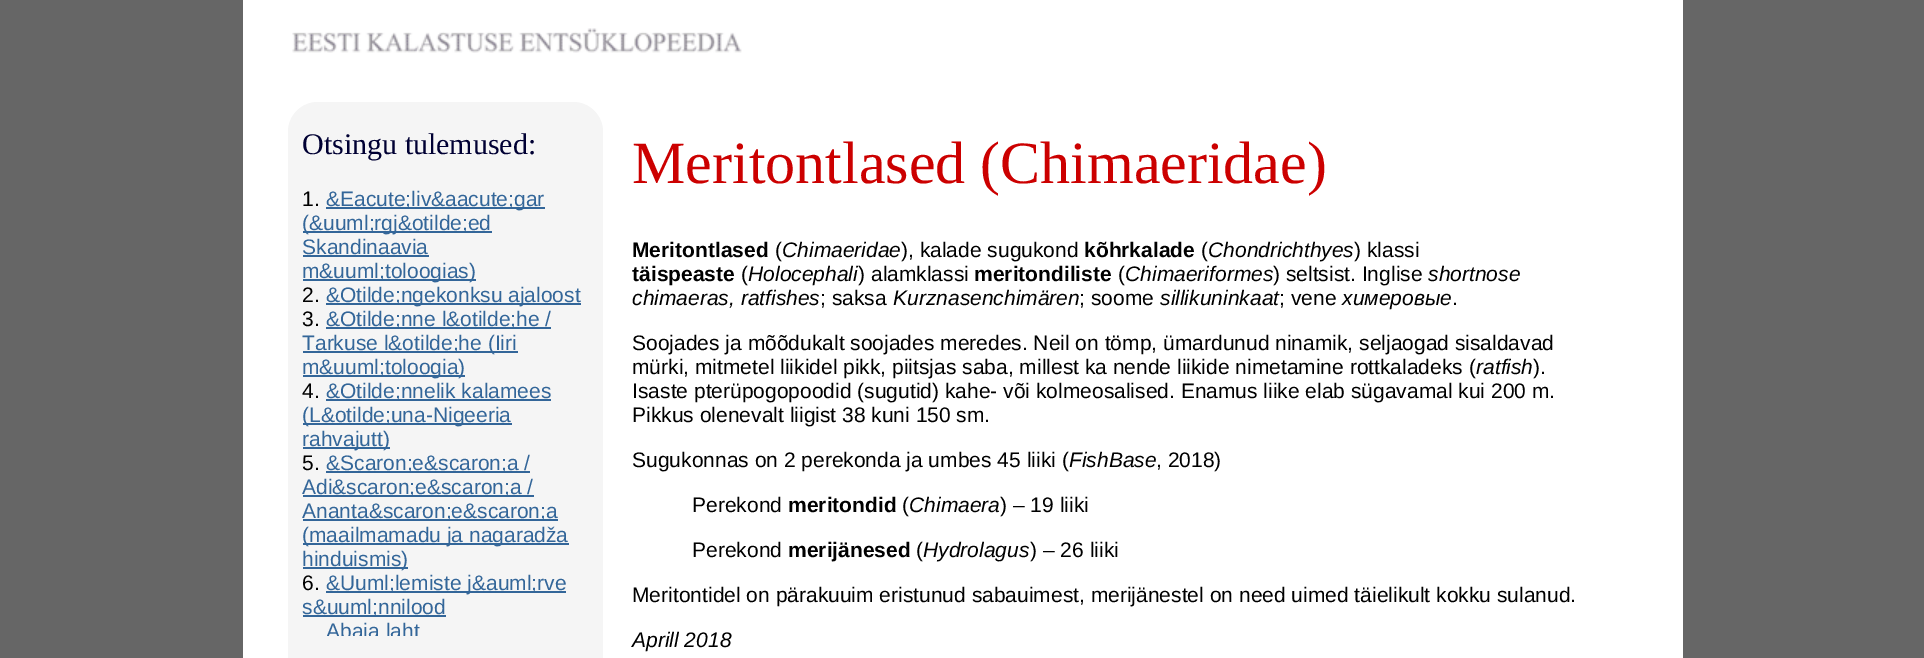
%!PS-Adobe-3.0
%%BoundingBox: 0 0 1924 658
%%LanguageLevel: 3
%%Pages: 1
%%EndComments
%%BeginProlog
/rrect { 5 dict begin { /r /h /w /y /x } { exch def } forall
  x r add y moveto x w add y 2 copy h add r arct x w add y h add x 1 index r arct
  x y h add x y r arct x y 2 copy exch w add exch r arct closepath end } def
/drawimage { 5 dict begin { /h /w /y /x /name } { exch def } forall
  gsave x y translate w h scale
  w h 8 [w 0 0 h 0 0] name (r) file false 3 colorimage grestore end } def
%%EndProlog
%%BeginSetup
<< /PageSize [1924 658] >> setpagedevice
%%EndSetup
%%Page: 1 1
0 658 translate 1 -1 scale
4 setmiterlimit
0.4 setgray
0 0 1924 658 rectfill
1 setgray
243 0 1440 658 rectfill
(images/1.raw) 292 28 450 25 drawimage
0.961 setgray
288 102 315 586 30 rrect fill
0.2 0.4 0.6 setrgbcolor
326 207 219 2 rectfill
303 231 189 2 rectfill
303 255 126 2 rectfill
303 279 173 2 rectfill
326 303 255 2 rectfill
326 327 225 2 rectfill
303 351 215 2 rectfill
303 375 162 2 rectfill
326 399 225 2 rectfill
303 423 209 2 rectfill
303 447 87 2 rectfill
326 471 204 2 rectfill
303 495 231 2 rectfill
303 519 255 2 rectfill
303 543 266 2 rectfill
303 567 105 2 rectfill
326 591 240 2 rectfill
303 615 143 2 rectfill
/LiberationSerif-Regular [30 0 0 -30 0 0] selectfont
0 0 0.2 setrgbcolor
302 154 moveto (Otsingu tulemused:) show
/LiberationSans-Regular [21 0 0 -21 0 0] selectfont
0 setgray
302 206 moveto (1.) show
0.2 0.4 0.6 setrgbcolor
326 206 moveto (&Eacute;liv&aacute;gar) show
302 230 moveto (\(&uuml;rgj&otilde;ed) show
302 254 moveto (Skandinaavia) show
302 278 moveto (m&uuml;toloogias\)) show
0 setgray
302 302 moveto (2.) show
0.2 0.4 0.6 setrgbcolor
326 302 moveto (&Otilde;ngekonksu ajaloost) show
0 setgray
302 326 moveto (3.) show
0.2 0.4 0.6 setrgbcolor
326 326 moveto (&Otilde;nne l&otilde;he /) show
302 350 moveto (Tarkuse l&otilde;he \(Iiri) show
302 374 moveto (m&uuml;toloogia\)) show
0 setgray
302 398 moveto (4.) show
0.2 0.4 0.6 setrgbcolor
326 398 moveto (&Otilde;nnelik kalamees) show
302 422 moveto (\(L&otilde;una-Nigeeria) show
302 446 moveto (rahvajutt\)) show
0 setgray
302 470 moveto (5.) show
0.2 0.4 0.6 setrgbcolor
326 470 moveto (&Scaron;e&scaron;a /) show
302 494 moveto (Adi&scaron;e&scaron;a /) show
302 518 moveto (Ananta&scaron;e&scaron;a) show
302 542 moveto (\(maailmamadu ja nagaradža) show
302 566 moveto (hinduismis\)) show
0 setgray
302 590 moveto (6.) show
0.2 0.4 0.6 setrgbcolor
326 590 moveto (&Uuml;lemiste j&auml;rve) show
302 614 moveto (s&uuml;nnilood) show
gsave
303 186 300 450 rectclip
326 638 moveto (Abaja laht) show
grestore
/LiberationSerif-Regular [60 0 0 -60 0 0] selectfont
0.8 0 0 setrgbcolor
632 183 moveto (Meritontlased \(Chimaeridae\)) show
/LiberationSans-Bold [21 0 0 -21 0 0] selectfont
0 setgray
632 257 moveto (Meritontlased) show
/LiberationSans-Regular [21 0 0 -21 0 0] selectfont
775 257 moveto (\() show
/LiberationSans-Italic [21 0 0 -21 0 0] selectfont
782 257 moveto (Chimaeridae) show
/LiberationSans-Regular [21 0 0 -21 0 0] selectfont
901 257 moveto (\), kalade sugukond) show
/LiberationSans-Bold [21 0 0 -21 0 0] selectfont
1084 257 moveto (kõhrkalade) show
/LiberationSans-Regular [21 0 0 -21 0 0] selectfont
1201 257 moveto (\() show
/LiberationSans-Italic [21 0 0 -21 0 0] selectfont
1208 257 moveto (Chondrichthyes) show
/LiberationSans-Regular [21 0 0 -21 0 0] selectfont
1354 257 moveto (\) klassi) show
/LiberationSans-Bold [21 0 0 -21 0 0] selectfont
632 281 moveto (täispeaste) show
/LiberationSans-Regular [21 0 0 -21 0 0] selectfont
741 281 moveto (\() show
/LiberationSans-Italic [21 0 0 -21 0 0] selectfont
748 281 moveto (Holocephali) show
/LiberationSans-Regular [21 0 0 -21 0 0] selectfont
858 281 moveto (\) alamklassi) show
/LiberationSans-Bold [21 0 0 -21 0 0] selectfont
974 281 moveto (meritondiliste) show
/LiberationSans-Regular [21 0 0 -21 0 0] selectfont
1118 281 moveto (\() show
/LiberationSans-Italic [21 0 0 -21 0 0] selectfont
1125 281 moveto (Chimaeriformes) show
/LiberationSans-Regular [21 0 0 -21 0 0] selectfont
1273 281 moveto (\) seltsist. Inglise) show
/LiberationSans-Italic [21 0 0 -21 0 0] selectfont
1428 281 moveto (shortnose) show
632 305 moveto (chimaeras, ratfishes) show
/LiberationSans-Regular [21 0 0 -21 0 0] selectfont
820 305 moveto (; saksa) show
/LiberationSans-Italic [21 0 0 -21 0 0] selectfont
893 305 moveto (Kurznasenchimären) show
/LiberationSans-Regular [21 0 0 -21 0 0] selectfont
1079 305 moveto (; soome) show
/LiberationSans-Italic [21 0 0 -21 0 0] selectfont
1160 305 moveto (sillikuninkaat) show
/LiberationSans-Regular [21 0 0 -21 0 0] selectfont
1279 305 moveto (; vene) show
/LiberationSans-Italic [21 0 0 -21 0 0] selectfont
1342 305 moveto (химеровые) show
/LiberationSans-Regular [21 0 0 -21 0 0] selectfont
1452 305 moveto (.) show
632 350 moveto (Soojades ja mõõdukalt soojades meredes. Neil on tömp, ümardunud ninamik, seljaogad sisaldavad) show
632 374 moveto (mürki, mitmetel liikidel pikk, piitsjas saba, millest ka nende liikide nimetamine rottkaladeks \() show
/LiberationSans-Italic [21 0 0 -21 0 0] selectfont
1476 374 moveto (ratfish) show
/LiberationSans-Regular [21 0 0 -21 0 0] selectfont
1533 374 moveto (\).) show
632 398 moveto (Isaste pterüpogopoodid \(sugutid\) kahe- või kolmeosalised. Enamus liike elab sügavamal kui 200 m.) show
632 422 moveto (Pikkus olenevalt liigist 38 kuni 150 sm.) show
632 467 moveto (Sugukonnas on 2 perekonda ja umbes 45 liiki \() show
/LiberationSans-Italic [21 0 0 -21 0 0] selectfont
1069 467 moveto (FishBase) show
/LiberationSans-Regular [21 0 0 -21 0 0] selectfont
1156 467 moveto (, 2018\)) show
692 512 moveto (Perekond) show
/LiberationSans-Bold [21 0 0 -21 0 0] selectfont
788 512 moveto (meritondid) show
/LiberationSans-Regular [21 0 0 -21 0 0] selectfont
902 512 moveto (\() show
/LiberationSans-Italic [21 0 0 -21 0 0] selectfont
909 512 moveto (Chimaera) show
/LiberationSans-Regular [21 0 0 -21 0 0] selectfont
1000 512 moveto (\) – 19 liiki) show
692 557 moveto (Perekond) show
/LiberationSans-Bold [21 0 0 -21 0 0] selectfont
788 557 moveto (merijänesed) show
/LiberationSans-Regular [21 0 0 -21 0 0] selectfont
916 557 moveto (\() show
/LiberationSans-Italic [21 0 0 -21 0 0] selectfont
923 557 moveto (Hydrolagus) show
/LiberationSans-Regular [21 0 0 -21 0 0] selectfont
1030 557 moveto (\) – 26 liiki) show
632 602 moveto (Meritontidel on pärakuuim eristunud sabauimest, merijänestel on need uimed täielikult kokku sulanud.) show
/LiberationSans-Italic [21 0 0 -21 0 0] selectfont
632 647 moveto (Aprill 2018) show
showpage
%%EOF
